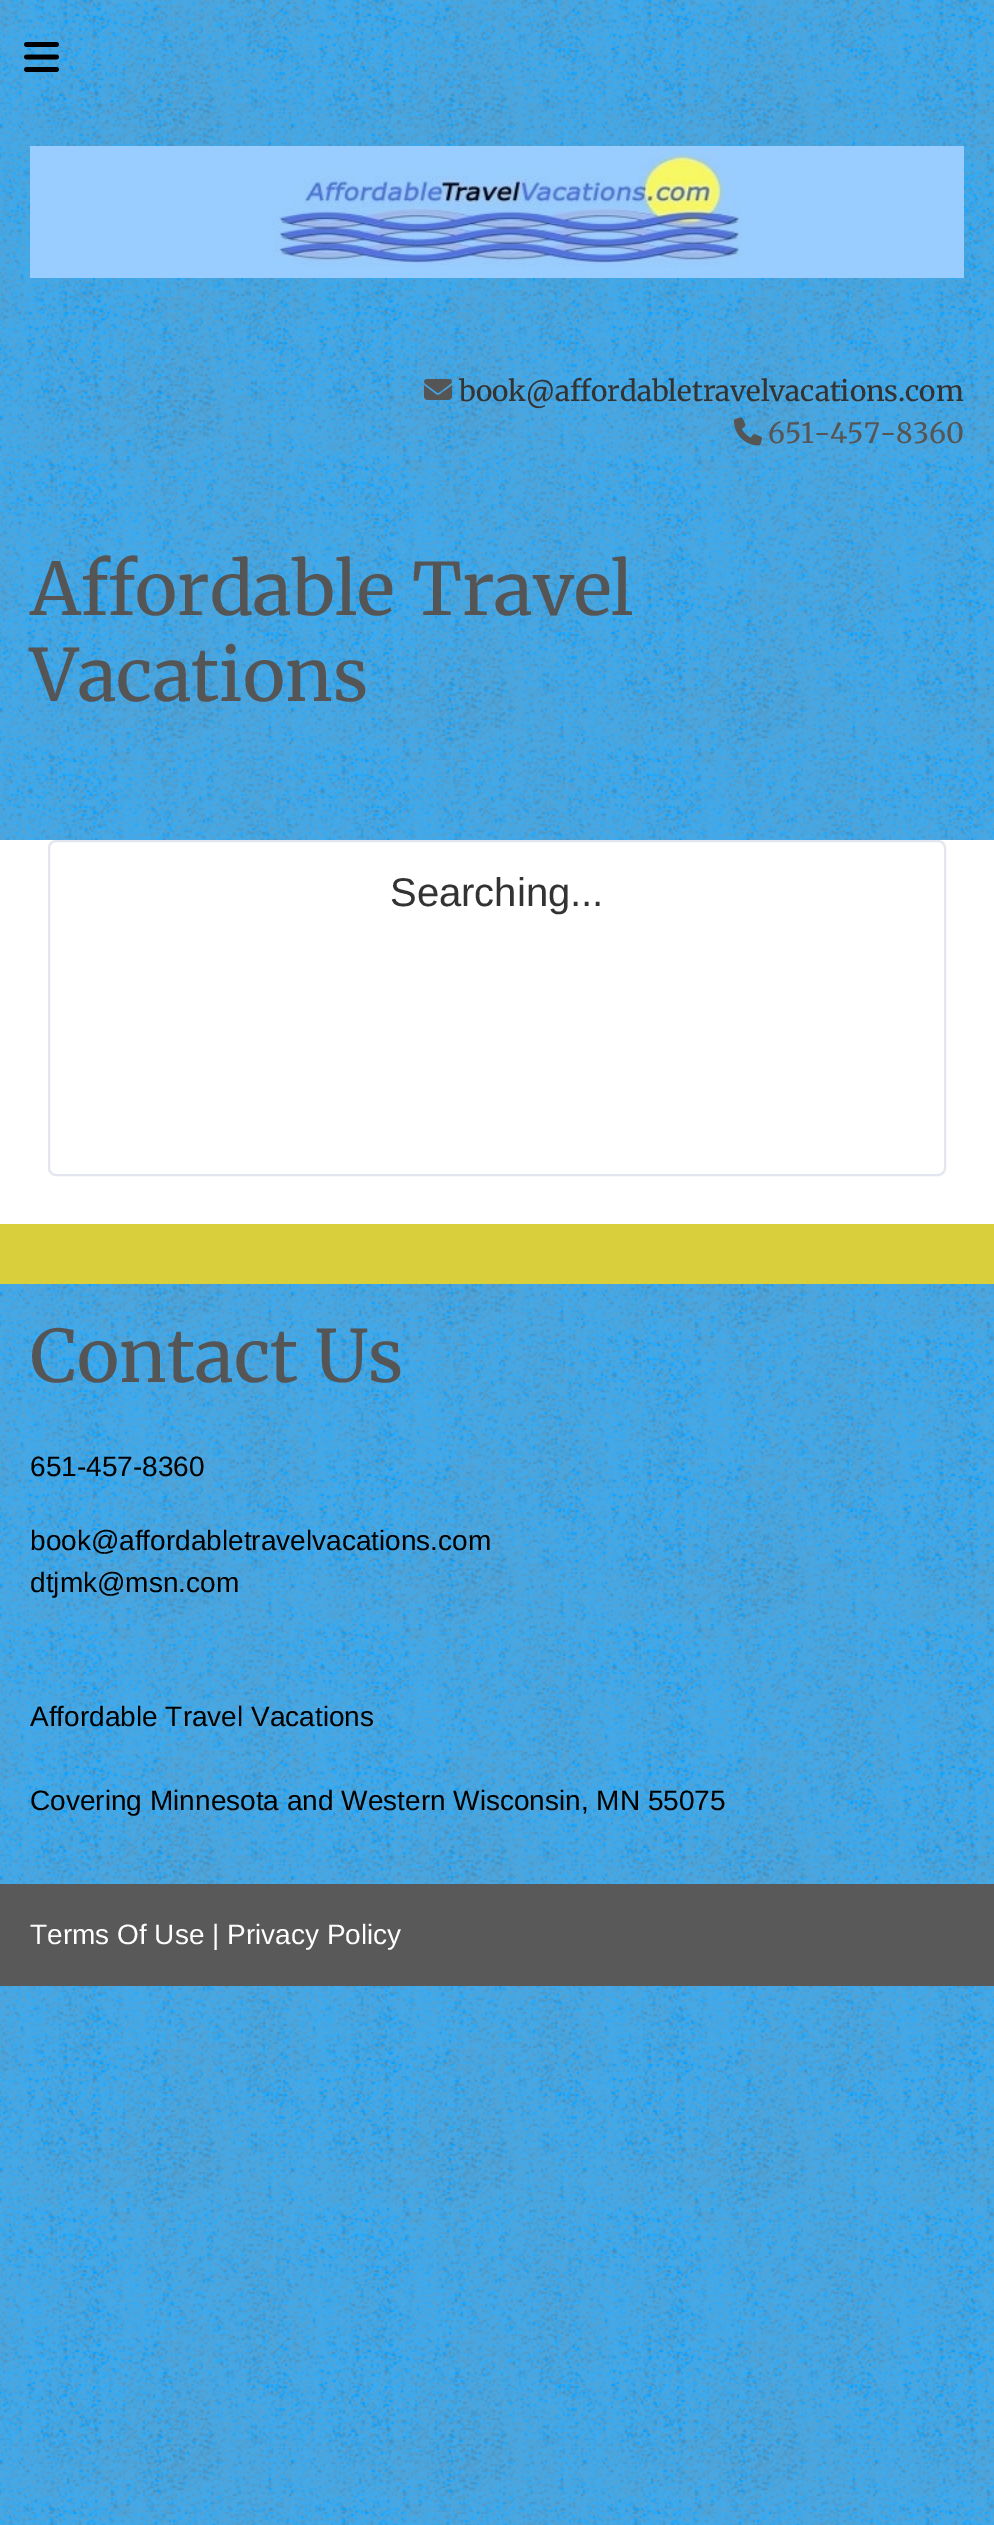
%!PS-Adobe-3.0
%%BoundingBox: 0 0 994 2525
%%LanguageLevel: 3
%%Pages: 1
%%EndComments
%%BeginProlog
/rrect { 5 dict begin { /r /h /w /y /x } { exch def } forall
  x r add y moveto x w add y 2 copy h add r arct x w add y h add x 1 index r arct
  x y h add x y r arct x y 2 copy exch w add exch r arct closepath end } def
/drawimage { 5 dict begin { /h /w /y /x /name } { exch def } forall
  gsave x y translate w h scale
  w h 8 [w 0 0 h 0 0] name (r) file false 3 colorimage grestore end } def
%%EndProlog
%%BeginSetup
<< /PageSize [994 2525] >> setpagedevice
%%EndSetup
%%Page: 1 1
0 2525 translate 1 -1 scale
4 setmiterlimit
0 0.616 1 setrgbcolor
0 0 994 2525 rectfill
(images/1.raw) 0 0 994 2525 drawimage
(images/2.raw) 24 42 35 30 drawimage
(images/3.raw) 30 146 934 132 drawimage
(images/4.raw) 424 379 28 21 drawimage
(images/5.raw) 734 417 28 29 drawimage
1 setgray
0 840 994 384 rectfill
0.894 0.902 0.937 setrgbcolor
2 setlinewidth
49 841 896 334 7 rrect stroke
0.851 0.808 0.231 setrgbcolor
0 1224 994 60 rectfill
0.349 setgray
0 1884 994 102 rectfill
/Merriweather-Light [28 0 0 -28 0 0] selectfont
0.2 setgray
459 401 moveto (book@affordabletravelvacations.com) show
0.333 setgray
768 443 moveto (651-457-8360) show
/Merriweather-Light [72 0 0 -72 0 0] selectfont
30 615 moveto (Affordable Travel) show
30 701 moveto (Vacations) show
/LiberationSans-Regular [40 0 0 -40 0 0] selectfont
0.2 setgray
390 906 moveto (Searching...) show
/Merriweather-Light [72 0 0 -72 0 0] selectfont
0.333 setgray
30 1382 moveto (Contact Us) show
/LiberationSans-Regular [28 0 0 -28 0 0] selectfont
0 setgray
30 1476 moveto (651-457-8360) show
30 1550 moveto (book@affordabletravelvacations.com) show
30 1592 moveto (dtjmk@msn.com) show
30 1726 moveto (Affordable Travel Vacations) show
30 1810 moveto (Covering Minnesota and Western Wisconsin, MN 55075) show
1 setgray
30 1944 moveto (Terms Of Use | Privacy Policy) show
showpage
%%EOF
